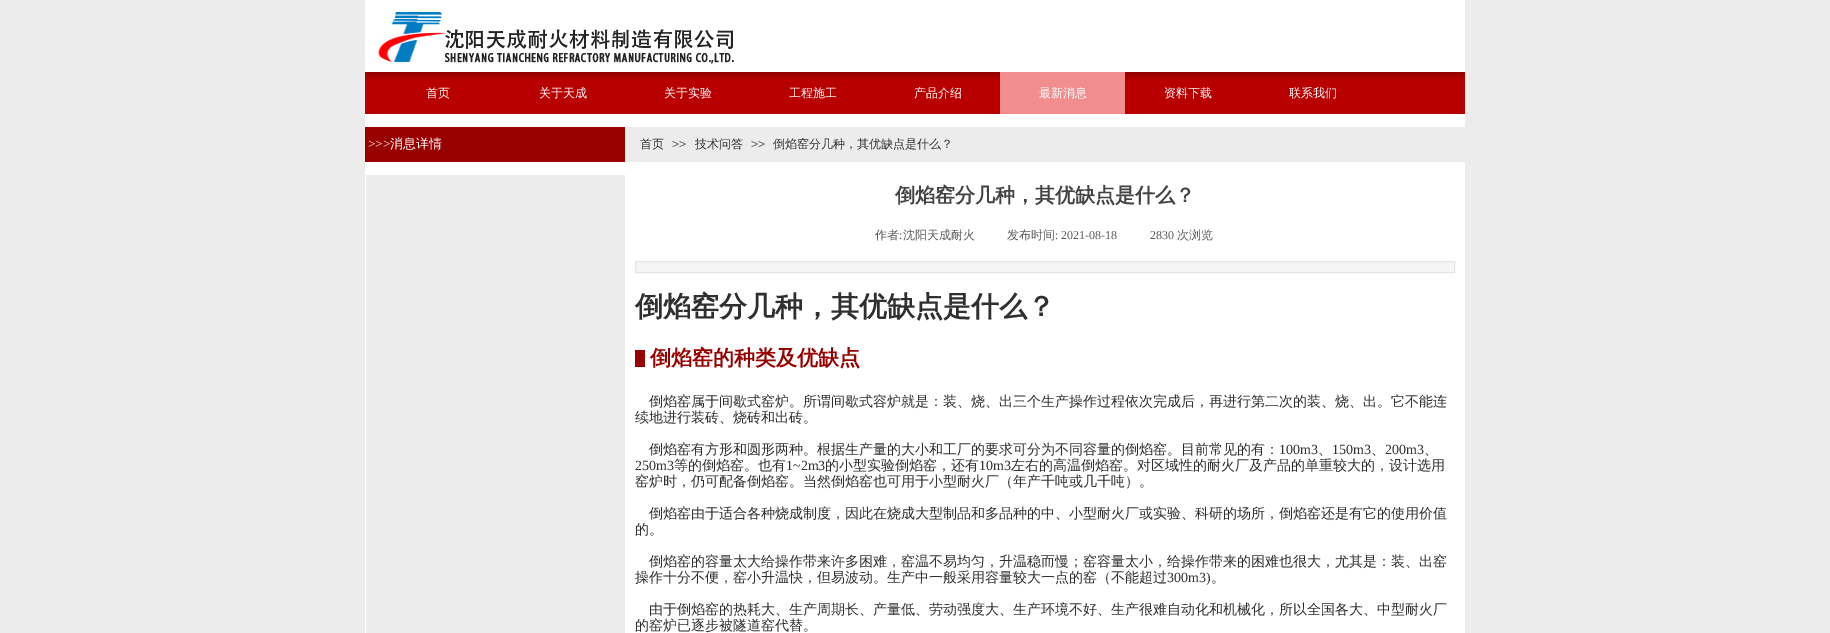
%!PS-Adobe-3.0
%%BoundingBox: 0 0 1830 633
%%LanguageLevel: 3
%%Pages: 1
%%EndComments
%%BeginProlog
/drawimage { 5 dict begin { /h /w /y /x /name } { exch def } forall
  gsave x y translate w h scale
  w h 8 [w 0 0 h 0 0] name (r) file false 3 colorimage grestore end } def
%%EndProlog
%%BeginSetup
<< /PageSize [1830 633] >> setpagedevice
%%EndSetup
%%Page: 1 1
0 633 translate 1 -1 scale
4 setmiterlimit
0.925 setgray
0 0 1830 633 rectfill
1 setgray
365 0 1100 633 rectfill
(images/1.raw) 378 12 356 52 drawimage
(images/2.raw) 365 72 1100 42 drawimage
0.949 0.553 0.553 setrgbcolor
1000 72 125 42 rectfill
0.596 0 0 setrgbcolor
365 127 260 35 rectfill
0.925 setgray
625 127 840 35 rectfill
366 175 259 458 rectfill
0.961 setgray
newpath 635.5 261.5 moveto 1454.5 261.5 lineto 1454.5 272.5 lineto 635.5 272.5 lineto closepath gsave fill grestore
0.898 setgray
stroke
0.6 0.004 0 setrgbcolor
635 350 10 17 rectfill
/WenQuanYiZenHei-Medium [12 0 0 -12 0 0] selectfont
1 setgray
426 97 moveto (首页) show
539 97 moveto (关于天成) show
664 97 moveto (关于实验) show
789 97 moveto (工程施工) show
914 97 moveto (产品介绍) show
1039 97 moveto (最新消息) show
1164 97 moveto (资料下载) show
1289 97 moveto (联系我们) show
/LiberationSerif-Regular [13 0 0 -13 0 0] selectfont
368 148 moveto (>>>) show
/WenQuanYiZenHei-Medium [13 0 0 -13 0 0] selectfont
390 148 moveto (消息详情) show
/WenQuanYiZenHei-Medium [12 0 0 -12 0 0] selectfont
0.184 setgray
640 148 moveto (首页) show
/LiberationSans-Regular [12 0 0 -12 0 0] selectfont
0.353 setgray
672 148 moveto (>>) show
/WenQuanYiZenHei-Medium [12 0 0 -12 0 0] selectfont
0.184 setgray
695 148 moveto (技术问答) show
/LiberationSans-Regular [12 0 0 -12 0 0] selectfont
0.353 setgray
751 148 moveto (>>) show
/WenQuanYiZenHei-Medium [12 0 0 -12 0 0] selectfont
0.184 setgray
773 148 moveto (倒焰窑分几种，其优缺点是什么？) show
/WenQuanYiZenHei-Bold [20 0 0 -20 0 0] selectfont
0.263 setgray
895 202 moveto (倒焰窑分几种，其优缺点是什么？) show
/WenQuanYiZenHei-Medium [12 0 0 -12 0 0] selectfont
0.353 setgray
875 239 moveto (作者 沈阳天成耐火) show
/LiberationSerif-Regular [12 0 0 -12 0 0] selectfont
899 239 moveto (:) show
/WenQuanYiZenHei-Medium [12 0 0 -12 0 0] selectfont
1007 239 moveto (发布时间) show
/LiberationSerif-Regular [12 0 0 -12 0 0] selectfont
1055 239 moveto (: 2021-08-18) show
1150 239 moveto (2830) show
/WenQuanYiZenHei-Medium [12 0 0 -12 0 0] selectfont
1177 239 moveto (次浏览) show
/WenQuanYiZenHei-Bold [28 0 0 -28 0 0] selectfont
0.184 setgray
635 316 moveto (倒焰窑分几种，其优缺点是什么？) show
/WenQuanYiZenHei-Bold [21 0 0 -21 0 0] selectfont
0.596 0 0 setrgbcolor
650 365 moveto (倒焰窑的种类及优缺点) show
/WenQuanYiZenHei-Medium [14 0 0 -14 0 0] selectfont
0.184 setgray
649 406 moveto (倒焰窑属于间歇式窑炉。所谓间歇式容炉就是：装、烧、出三个生产操作过程依次完成后，再进行第二次的装、烧、出。它不能连) show
635 422 moveto (续地进行装砖、烧砖和出砖。) show
649 454 moveto (倒焰窑有方形和圆形两种。根据生产量的大小和工厂的要求可分为不同容量的倒焰窑。目前常见的有：) show
/LiberationSerif-Regular [14 0 0 -14 0 0] selectfont
1279 454 moveto (100m3) show
/WenQuanYiZenHei-Medium [14 0 0 -14 0 0] selectfont
1318 454 moveto (、) show
/LiberationSerif-Regular [14 0 0 -14 0 0] selectfont
1332 454 moveto (150m3) show
/WenQuanYiZenHei-Medium [14 0 0 -14 0 0] selectfont
1371 454 moveto (、) show
/LiberationSerif-Regular [14 0 0 -14 0 0] selectfont
1385 454 moveto (200m3) show
/WenQuanYiZenHei-Medium [14 0 0 -14 0 0] selectfont
1424 454 moveto (、) show
/LiberationSerif-Regular [14 0 0 -14 0 0] selectfont
635 470 moveto (250m3) show
/WenQuanYiZenHei-Medium [14 0 0 -14 0 0] selectfont
674 470 moveto (等的倒焰窑。也有) show
/LiberationSerif-Regular [14 0 0 -14 0 0] selectfont
786 470 moveto (1~2m3) show
/WenQuanYiZenHei-Medium [14 0 0 -14 0 0] selectfont
825 470 moveto (的小型实验倒焰窑，还有) show
/LiberationSerif-Regular [14 0 0 -14 0 0] selectfont
979 470 moveto (10m3) show
/WenQuanYiZenHei-Medium [14 0 0 -14 0 0] selectfont
1011 470 moveto (左右的高温倒焰窑。对区域性的耐火厂及产品的单重较大的，设计选用) show
635 486 moveto (窑炉时，仍可配备倒焰窑。当然倒焰窑也可用于小型耐火厂（年产千吨或几千吨）。) show
649 518 moveto (倒焰窑由于适合各种烧成制度，因此在烧成大型制品和多品种的中、小型耐火厂或实验、科研的场所，倒焰窑还是有它的使用价值) show
635 534 moveto (的。) show
649 566 moveto (倒焰窑的容量太大给操作带来许多困难，窑温不易均匀，升温稳而慢；窑容量太小，给操作带来的困难也很大，尤其是：装、出窑) show
635 582 moveto (操作十分不便，窑小升温快，但易波动。生产中一般采用容量较大一点的窑（不能超过) show
/LiberationSerif-Regular [14 0 0 -14 0 0] selectfont
1167 582 moveto (300m3\)) show
/WenQuanYiZenHei-Medium [14 0 0 -14 0 0] selectfont
1211 582 moveto (。) show
649 614 moveto (由于倒焰窑的热耗大、生产周期长、产量低、劳动强度大、生产环境不好、生产很难自动化和机械化，所以全国各大、中型耐火厂) show
635 630 moveto (的窑炉已逐步被隧道窑代替。) show
showpage
%%EOF
